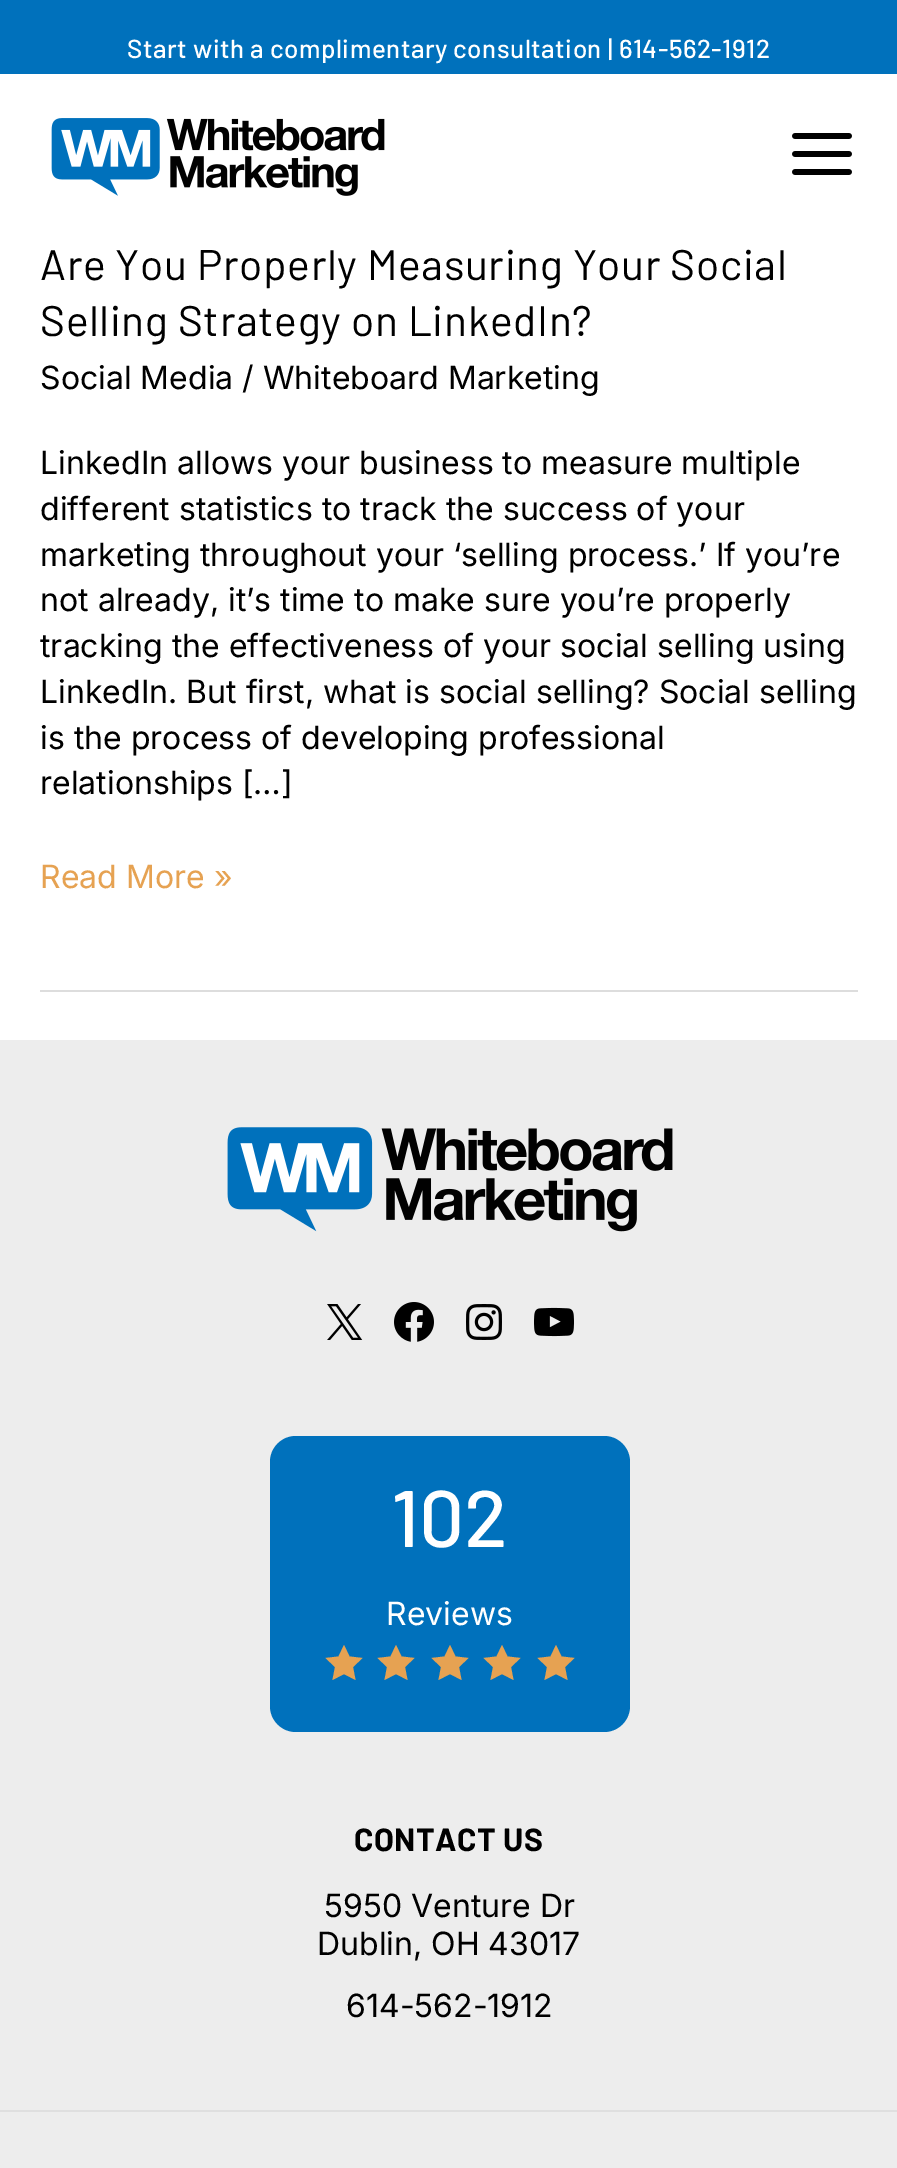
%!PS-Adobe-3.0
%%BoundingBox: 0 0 897 2168
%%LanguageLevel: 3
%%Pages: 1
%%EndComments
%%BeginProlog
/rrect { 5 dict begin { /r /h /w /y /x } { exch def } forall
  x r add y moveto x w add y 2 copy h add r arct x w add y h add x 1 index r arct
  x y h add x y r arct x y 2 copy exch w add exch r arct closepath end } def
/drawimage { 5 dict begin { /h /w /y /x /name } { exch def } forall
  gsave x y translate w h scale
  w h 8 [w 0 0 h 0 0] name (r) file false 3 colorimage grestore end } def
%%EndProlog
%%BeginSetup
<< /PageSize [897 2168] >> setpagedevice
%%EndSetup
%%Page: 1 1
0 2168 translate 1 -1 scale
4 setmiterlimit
1 setgray
0 0 897 2168 rectfill
0 0.443 0.737 setrgbcolor
0 0 897 74 rectfill
(images/1.raw) 51 118 334 78 drawimage
(images/2.raw) 792 133 60 42 drawimage
0.867 setgray
40 990 818 2 rectfill
0.929 setgray
0 1040 897 1128 rectfill
(images/3.raw) 227 1127 446 105 drawimage
(images/4.raw) 327 1304 36 36 drawimage
(images/5.raw) 394 1302 40 40 drawimage
(images/6.raw) 466 1304 36 36 drawimage
(images/7.raw) 534 1307 40 30 drawimage
0 0.443 0.737 setrgbcolor
270 1436 360 296 26 rrect fill
0.902 0.635 0.322 setrgbcolor
newpath 344 1645 moveto 349.5 1656.5 lineto 362.5 1658 lineto 353 1667 lineto 355.5 1680 lineto 344 1674 lineto 332.5 1680 lineto 335 1667 lineto 325.5 1658 lineto 338.5 1656.5 lineto closepath fill
newpath 396 1645 moveto 401.5 1656.5 lineto 414.5 1658 lineto 405 1667 lineto 407.5 1680 lineto 396 1674 lineto 384.5 1680 lineto 387 1667 lineto 377.5 1658 lineto 390.5 1656.5 lineto closepath fill
newpath 450 1645 moveto 455.5 1656.5 lineto 468.5 1658 lineto 459 1667 lineto 461.5 1680 lineto 450 1674 lineto 438.5 1680 lineto 441 1667 lineto 431.5 1658 lineto 444.5 1656.5 lineto closepath fill
newpath 502 1645 moveto 507.5 1656.5 lineto 520.5 1658 lineto 511 1667 lineto 513.5 1680 lineto 502 1674 lineto 490.5 1680 lineto 493 1667 lineto 483.5 1658 lineto 496.5 1656.5 lineto closepath fill
newpath 556 1645 moveto 561.5 1656.5 lineto 574.5 1658 lineto 565 1667 lineto 567.5 1680 lineto 556 1674 lineto 544.5 1680 lineto 547 1667 lineto 537.5 1658 lineto 550.5 1656.5 lineto closepath fill
0.875 setgray
0 2110 897 2 rectfill
/Barlow-Medium [26 0 0 -26 0 0] selectfont
1 setgray
127 58 moveto 0.5 0 (Start with a complimentary consultation | 614-562-1912) ashow
/Barlow-Regular [42.7 0 0 -42.7 0 0] selectfont
0 setgray
40 280 moveto 0.65 0 (Are You Properly Measuring Your Social) ashow
40 336 moveto 0.65 0 (Selling Strategy on LinkedIn?) ashow
/Inter-Regular [32 0 0 -32 0 0] selectfont
40 389 moveto (Social Media / Whiteboard Marketing) show
40 474 moveto (LinkedIn allows your business to measure multiple) show
40 520 moveto (different statistics to track the success of your) show
40 566 moveto (marketing throughout your ‘selling process.’ If you’re) show
40 611 moveto (not already, it’s time to make sure you’re properly) show
40 657 moveto (tracking the effectiveness of your social selling using) show
40 703 moveto (LinkedIn. But first, what is social selling? Social selling) show
40 749 moveto (is the process of developing professional) show
40 794 moveto (relationships […]) show
0.902 0.635 0.322 setrgbcolor
40 888 moveto (Read More ») show
/Barlow-Medium [80 0 0 -80 0 0] selectfont
1 setgray
391 1547 moveto (102) show
/Inter-Regular [32 0 0 -32 0 0] selectfont
386 1625 moveto (Reviews) show
/Barlow-Bold [32 0 0 -32 0 0] selectfont
0 setgray
354 1851 moveto 0.5 0 (CONTACT US) ashow
/Inter-Regular [32 0 0 -32 0 0] selectfont
324 1917 moveto (5950 Venture Dr) show
317 1955 moveto (Dublin, OH 43017) show
346 2017 moveto (614-562-1912) show
showpage
%%EOF
